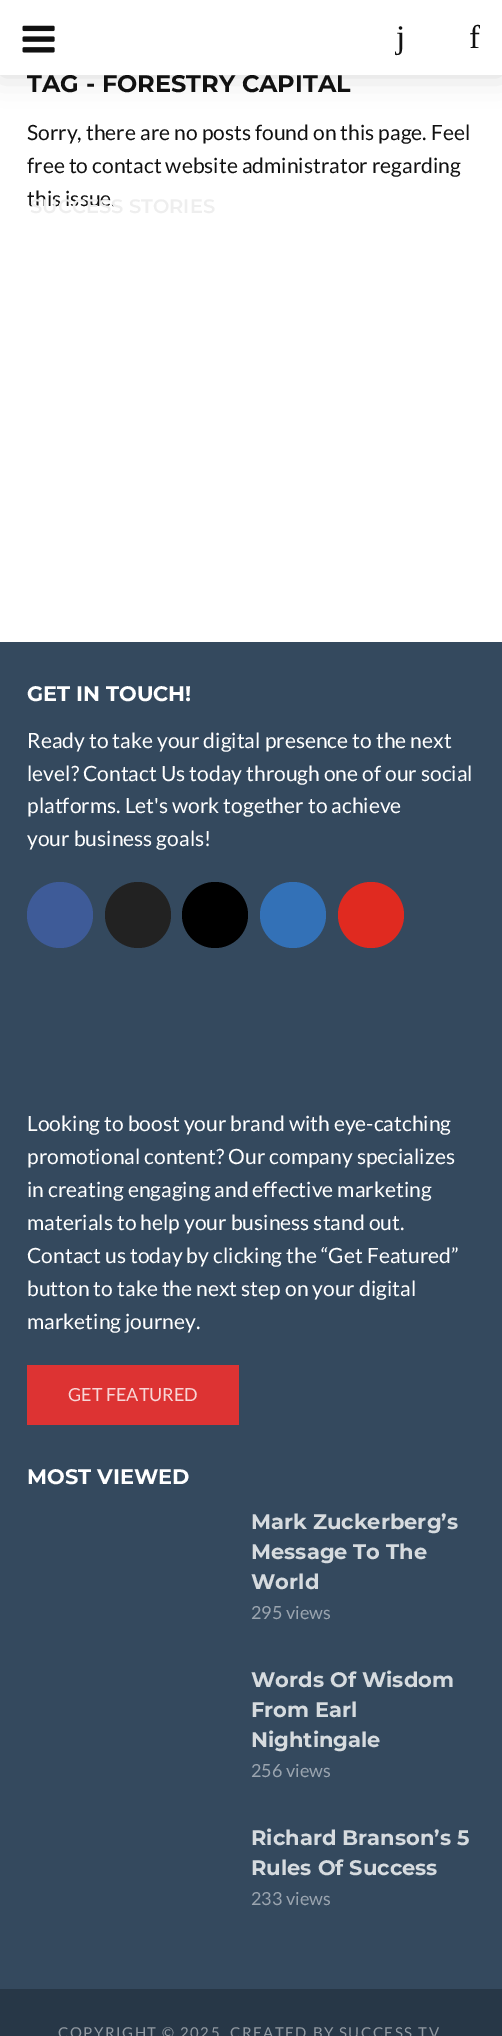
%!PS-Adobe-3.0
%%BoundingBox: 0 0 502 2036
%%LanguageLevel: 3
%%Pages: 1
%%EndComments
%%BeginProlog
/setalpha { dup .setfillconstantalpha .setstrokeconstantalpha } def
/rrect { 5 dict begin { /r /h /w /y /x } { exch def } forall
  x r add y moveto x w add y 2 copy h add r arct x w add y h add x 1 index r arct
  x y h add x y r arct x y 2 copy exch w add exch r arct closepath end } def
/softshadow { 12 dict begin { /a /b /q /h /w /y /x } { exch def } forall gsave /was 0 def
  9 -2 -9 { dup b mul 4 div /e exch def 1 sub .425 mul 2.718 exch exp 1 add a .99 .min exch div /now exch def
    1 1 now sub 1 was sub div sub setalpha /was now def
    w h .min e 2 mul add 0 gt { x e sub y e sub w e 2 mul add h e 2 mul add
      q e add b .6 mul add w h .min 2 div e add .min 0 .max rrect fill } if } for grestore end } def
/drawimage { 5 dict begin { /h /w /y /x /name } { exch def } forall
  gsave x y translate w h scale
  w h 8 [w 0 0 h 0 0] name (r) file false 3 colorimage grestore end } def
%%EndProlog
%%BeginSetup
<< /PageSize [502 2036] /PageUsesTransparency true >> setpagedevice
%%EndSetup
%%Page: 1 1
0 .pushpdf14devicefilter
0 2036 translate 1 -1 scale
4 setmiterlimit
1 setgray
0 0 502 2036 rectfill
0 setgray
0 0 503 75 0 15 0.15 softshadow
0.204 0.286 0.369 setrgbcolor
0 642 502 1347 rectfill
0.243 0.357 0.596 setrgbcolor
newpath 60 915 33 0 360 arc closepath fill
0.133 setgray
newpath 138 915 33 0 360 arc closepath fill
0 setgray
newpath 215 915 33 0 360 arc closepath fill
0.2 0.443 0.718 setrgbcolor
newpath 293 915 33 0 360 arc closepath fill
0.878 0.165 0.125 setrgbcolor
newpath 371 915 33 0 360 arc closepath fill
0.867 0.2 0.2 setrgbcolor
27 1365 212 60 rectfill
0.153 0.216 0.278 setrgbcolor
0 1989 502 47 rectfill
/Montserrat-Bold [24 0 0 -24 0 0] selectfont
0.067 setgray
27 92 moveto (TAG - FORESTRY CAPITAL) show
1 setgray
0 0 502 75 rectfill
/LiberationSerif-Regular [33 0 0 -33 0 0] selectfont
0.067 setgray
396 48 moveto (j) show
469 48 moveto (f) show
(images/1.raw) 22 25 33 28 drawimage
/Lato-Regular [21 0 0 -21 0 0] selectfont
27 140 moveto (Sorry, there are no posts found on this page. Feel) show
27 173 moveto (free to contact website administrator regarding) show
27 206 moveto (this issue.) show
/Montserrat-SemiBold [19.5 0 0 -19.5 0 0] selectfont
0.933 setgray
30 213 moveto (SUCCESS STORIES) show
/Montserrat-Bold [21 0 0 -21 0 0] selectfont
1 setgray
27 701 moveto (GET IN TOUCH!) show
/Lato-Regular [21 0 0 -21 0 0] selectfont
27 748 moveto (Ready to take your digital presence to the next) show
27 781 moveto (level? Contact Us today through one of our social) show
27 813 moveto (platforms. Let's work together to achieve) show
27 846 moveto (your business goals!) show
27 1131 moveto (Looking to boost your brand with eye-catching) show
27 1164 moveto (promotional content? Our company specializes) show
27 1197 moveto (in creating engaging and effective marketing) show
27 1230 moveto (materials to help your business stand out.) show
27 1263 moveto (Contact us today by clicking the “Get Featured”) show
27 1296 moveto (button to take the next step on your digital) show
27 1329 moveto (marketing journey.) show
/Lato-Regular [18 0 0 -18 0 0] selectfont
0.973 0.839 0.839 setrgbcolor
68 1401 moveto (GET FEATURED) show
/Montserrat-Bold [21 0 0 -21 0 0] selectfont
1 setgray
27 1484 moveto (MOST VIEWED) show
0.839 0.859 0.875 setrgbcolor
251 1529 moveto (Mark Zuckerberg’s) show
251 1559 moveto (Message To The) show
251 1589 moveto (World) show
/Lato-Regular [18 0 0 -18 0 0] selectfont
0.604 0.643 0.686 setrgbcolor
251 1619 moveto (295 views) show
/Montserrat-Bold [21 0 0 -21 0 0] selectfont
0.839 0.859 0.875 setrgbcolor
251 1687 moveto (Words Of Wisdom) show
251 1717 moveto (From Earl) show
251 1747 moveto (Nightingale) show
/Lato-Regular [18 0 0 -18 0 0] selectfont
0.604 0.643 0.686 setrgbcolor
251 1777 moveto (256 views) show
/Montserrat-Bold [21 0 0 -21 0 0] selectfont
0.839 0.859 0.875 setrgbcolor
251 1845 moveto (Richard Branson’s 5) show
251 1875 moveto (Rules Of Success) show
/Lato-Regular [18 0 0 -18 0 0] selectfont
0.604 0.643 0.686 setrgbcolor
251 1905 moveto (233 views) show
/Lato-Regular [15 0 0 -15 0 0] selectfont
0.576 0.608 0.639 setrgbcolor
58 2038 moveto 1.5 0 (COPYRIGHT © 2025. CREATED BY SUCCESS.TV) ashow
.poppdf14devicefilter showpage
%%EOF
